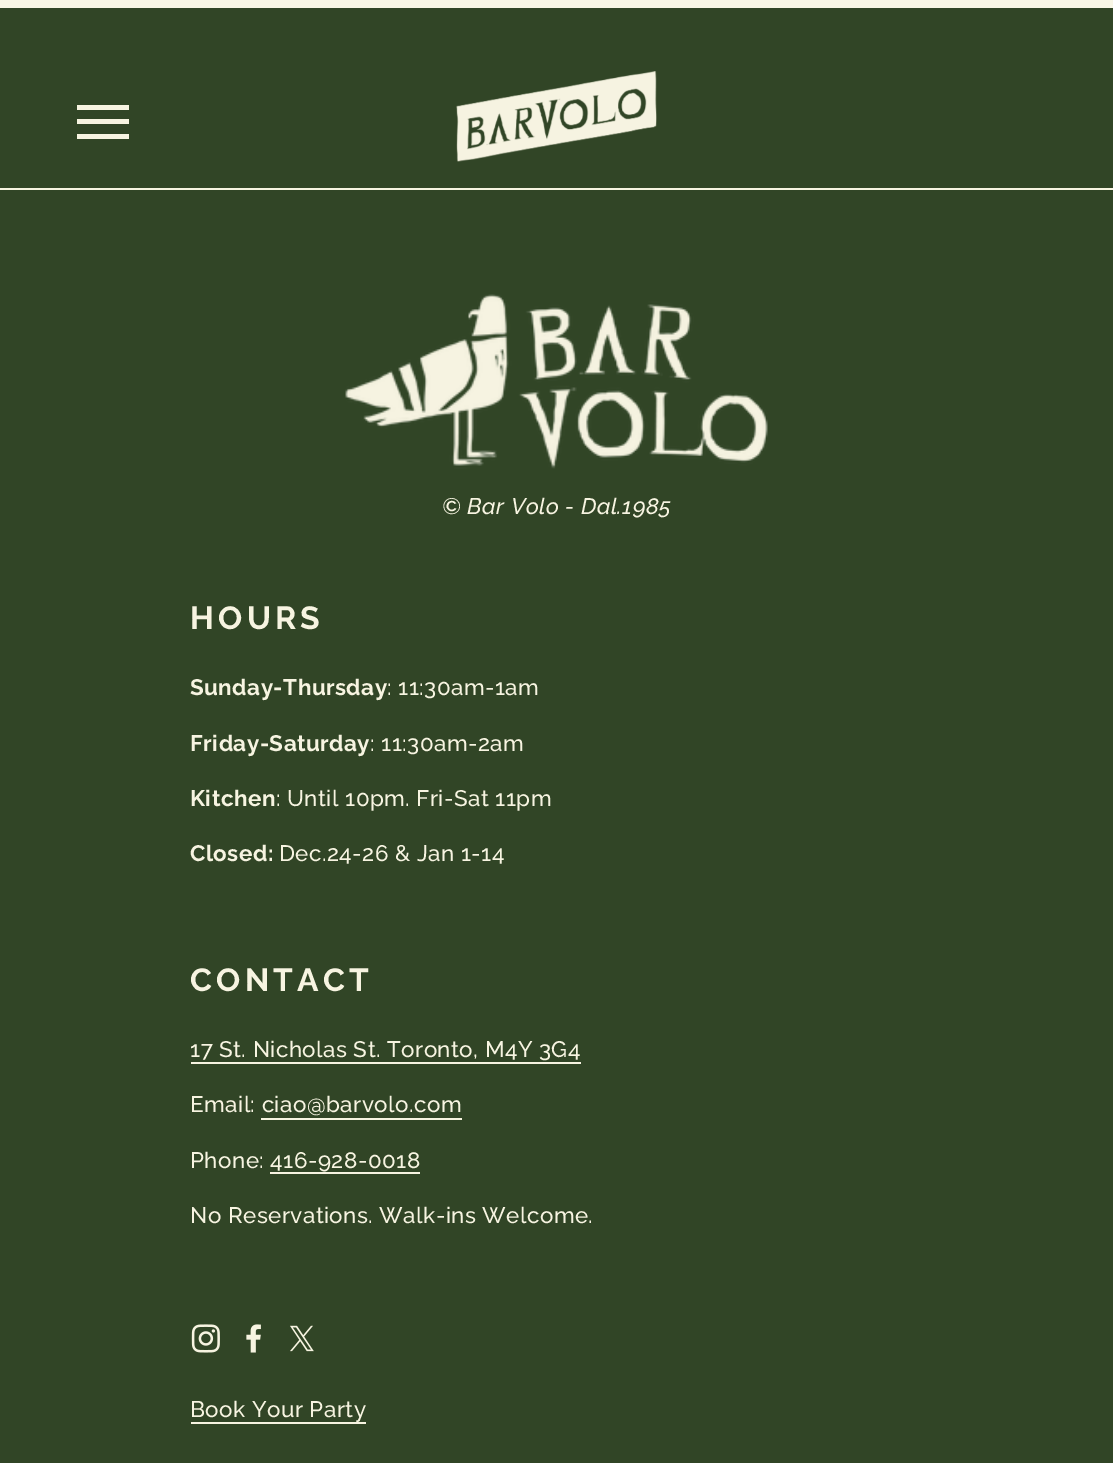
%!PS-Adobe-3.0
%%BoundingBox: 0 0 1113 1463
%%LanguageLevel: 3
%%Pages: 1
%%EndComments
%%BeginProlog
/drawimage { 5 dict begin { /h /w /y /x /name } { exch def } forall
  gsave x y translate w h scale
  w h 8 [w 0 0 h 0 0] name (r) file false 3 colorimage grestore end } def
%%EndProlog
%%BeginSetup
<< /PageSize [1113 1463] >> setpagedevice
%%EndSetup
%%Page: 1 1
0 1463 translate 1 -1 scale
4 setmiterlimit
0.973 0.965 0.898 setrgbcolor
0 0 1113 1463 rectfill
0.192 0.271 0.149 setrgbcolor
0 8 1113 1455 rectfill
0.969 0.957 0.882 setrgbcolor
77 105 52 5 rectfill
77 119 52 5 rectfill
77 134 52 5 rectfill
(images/1.raw) 456 71 201 91 drawimage
0 188 1113 2 rectfill
(images/2.raw) 345 294 423 175 drawimage
191 1062 390 2 rectfill
261 1118 201 2 rectfill
270 1172 150 2 rectfill
(images/3.raw) 191 1324 29 29 drawimage
(images/4.raw) 246 1324 15 29 drawimage
(images/5.raw) 290 1325 24 27 drawimage
191 1422 175 2 rectfill
/Raleway-MediumItalic [22.4 0 0 -22.4 0 0] selectfont
442 514 moveto 0.45 0 (© Bar Volo - Dal.1985) ashow
/Raleway-Bold [32 0 0 -32 0 0] selectfont
190 629 moveto 4.25 0 (HOURS) ashow
/Raleway-Bold [22.4 0 0 -22.4 0 0] selectfont
190 695 moveto 0.45 0 (Sunday-Thursday) ashow
/Raleway-Medium [22.4 0 0 -22.4 0 0] selectfont
387 695 moveto 0.45 0 (: 11:30am-1am) ashow
/Raleway-Bold [22.4 0 0 -22.4 0 0] selectfont
190 751 moveto 0.45 0 (Friday-Saturday) ashow
/Raleway-Medium [22.4 0 0 -22.4 0 0] selectfont
370 751 moveto 0.45 0 (: 11:30am-2am) ashow
/Raleway-Bold [22.4 0 0 -22.4 0 0] selectfont
190 806 moveto 0.45 0 (Kitchen) ashow
/Raleway-Medium [22.4 0 0 -22.4 0 0] selectfont
276 806 moveto 0.45 0 (: Until 10pm. Fri-Sat 11pm) ashow
/Raleway-Bold [22.4 0 0 -22.4 0 0] selectfont
190 861 moveto 0.45 0 (Closed:) ashow
/Raleway-Medium [22.4 0 0 -22.4 0 0] selectfont
279 861 moveto 0.45 0 (Dec.24-26 & Jan 1-14) ashow
/Raleway-Bold [32 0 0 -32 0 0] selectfont
190 991 moveto 4.25 0 (CONTACT) ashow
/Raleway-Medium [22.4 0 0 -22.4 0 0] selectfont
190 1057 moveto 0.45 0 (17 St. Nicholas St. Toronto, M4Y 3G4) ashow
190 1112 moveto 0.45 0 (Email: ciao@barvolo.com) ashow
190 1168 moveto 0.45 0 (Phone: 416-928-0018) ashow
190 1223 moveto 0.45 0 (No Reservations. Walk-ins Welcome.) ashow
190 1417 moveto 0.45 0 (Book Your Party) ashow
showpage
%%EOF
